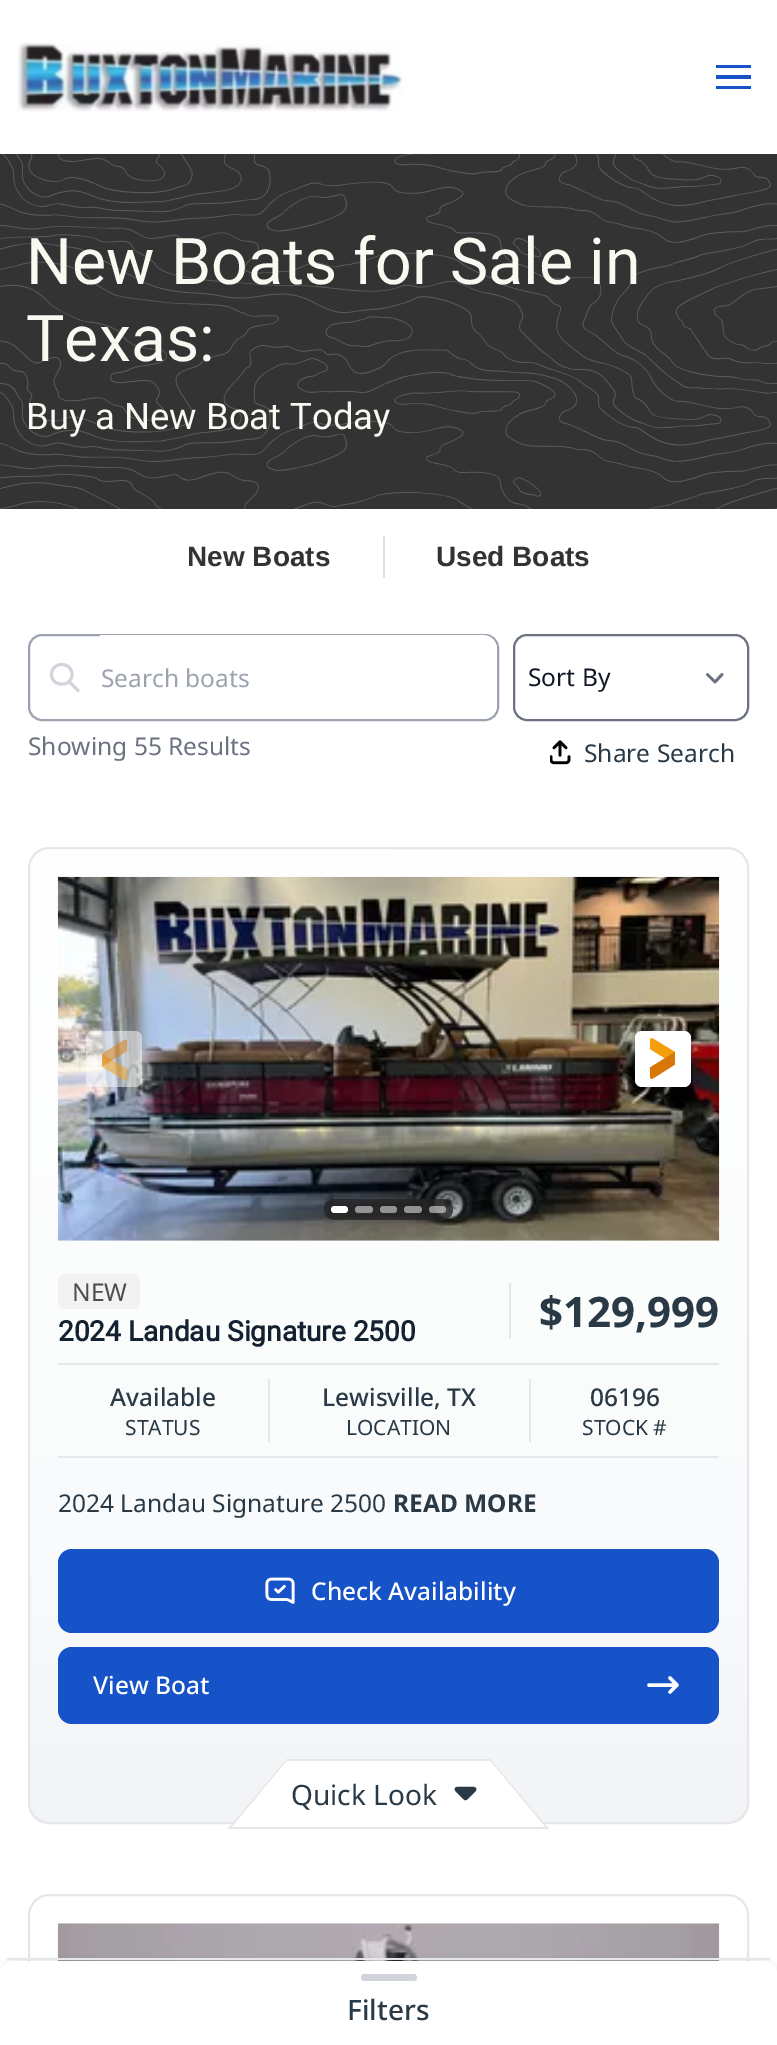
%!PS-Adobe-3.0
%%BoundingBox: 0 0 777 2045
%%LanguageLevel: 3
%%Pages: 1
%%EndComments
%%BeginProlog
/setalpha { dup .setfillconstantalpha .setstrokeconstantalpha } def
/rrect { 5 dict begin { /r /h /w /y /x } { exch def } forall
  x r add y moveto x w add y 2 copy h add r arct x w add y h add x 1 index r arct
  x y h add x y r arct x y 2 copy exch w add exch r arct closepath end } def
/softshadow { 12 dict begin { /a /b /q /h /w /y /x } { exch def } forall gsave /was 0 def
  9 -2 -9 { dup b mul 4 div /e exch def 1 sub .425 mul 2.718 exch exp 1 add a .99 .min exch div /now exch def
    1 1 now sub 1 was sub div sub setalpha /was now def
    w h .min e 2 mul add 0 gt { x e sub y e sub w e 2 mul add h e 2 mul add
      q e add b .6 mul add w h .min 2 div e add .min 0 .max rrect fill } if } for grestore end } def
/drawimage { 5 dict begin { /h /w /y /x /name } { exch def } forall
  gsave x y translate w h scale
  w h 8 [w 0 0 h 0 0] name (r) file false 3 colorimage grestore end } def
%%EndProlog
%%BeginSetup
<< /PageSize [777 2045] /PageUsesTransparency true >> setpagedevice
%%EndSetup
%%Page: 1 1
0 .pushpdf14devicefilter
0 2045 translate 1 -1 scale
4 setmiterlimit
1 setgray
0 0 777 2045 rectfill
(images/1.raw) 17 42 386 70 drawimage
0.09 0.325 0.784 setrgbcolor
716 65 35 3 rectfill
716 75 35 4 rectfill
716 86 35 3 rectfill
0.2 setgray
0 154 777 355 rectfill
(images/2.raw) 0 154 777 355 drawimage
0.882 0.878 0.847 setrgbcolor
383 536 2 42 rectfill
0.612 0.639 0.686 setrgbcolor
2 setlinewidth
29 635 469 85 13 rrect stroke
0.82 0.835 0.859 setrgbcolor
2.9 setlinewidth
1 setlinecap
1 setlinejoin
newpath 78 690.5 moveto 69 681.5 lineto 72 674.5 moveto 72 687.5 51.5 687.5 51.5 674.5 curveto 51.5 661 72 661 72 674.5 curveto closepath stroke
gsave
30 635 467 84 12 rrect clip newpath
1 setgray
newpath 100 635 moveto 483 635 lineto 490.5 635 497 641.5 497 649 curveto 497 705 lineto 497 712.5 490.5 719 483 719 curveto 100 719 lineto closepath fill
grestore
0.42 0.447 0.502 setrgbcolor
2.8 setlinewidth
newpath 707.5 674.5 moveto 715 682 lineto 722 674.5 lineto stroke
2 setlinewidth
0 setlinecap
0 setlinejoin
514 635 234 85 13 rrect stroke
(images/3.raw) 550 740 21 25 drawimage
gsave
28 847 721 977 21 rrect clip newpath
gsave newpath 28 849 moveto 749 849 lineto 749 1822 lineto 28 1822 lineto closepath clip newpath
<< /ShadingType 2 /ColorSpace /DeviceRGB /Coords [388 849 389 1822] /Extend [true true] /Function << /FunctionType 3 /Domain [0 1] /Functions [<< /FunctionType 2 /Domain [0 1] /C0 [1 1 1] /C1 [0.976 0.98 0.984] /N 1 >> << /FunctionType 2 /Domain [0 1] /C0 [0.976 0.98 0.984] /C1 [0.953 0.957 0.965] /N 1 >>] /Bounds [0.75] /Encode [0 1 0 1] >> >> shfill grestore
grestore
0.898 0.906 0.922 setrgbcolor
29 848 719 975 20 rrect stroke
(images/4.raw) 57 876 663 365 drawimage
0.5 setalpha
1 setgray
86 1031 56 56 7 rrect fill
0.961 0.62 0.043 setrgbcolor
newpath 125 1080.5 moveto 102 1066.5 lineto 102 1054 lineto 127 1069 lineto 127 1079.5 lineto closepath fill
0.851 0.467 0.024 setrgbcolor
newpath 125 1039.5 moveto 102 1054 lineto 102 1066.5 lineto 127 1051 lineto 127 1040.5 lineto closepath fill
1 setalpha
0 setgray
637 1034 53 53 5 2 0.1 softshadow
635 1033 56 56 7 2.5 0.1 softshadow
1 setgray
635 1031 56 56 7 rrect fill
0.961 0.62 0.043 setrgbcolor
newpath 652 1038 moveto 675 1052 lineto 675 1064.5 lineto 650 1049 lineto 650 1039 lineto closepath fill
0.851 0.467 0.024 setrgbcolor
newpath 652 1079 moveto 675 1064.5 lineto 675 1052 lineto 650 1067.5 lineto 650 1078 lineto closepath fill
0.75 setalpha
0.133 setgray
324 1199 129 21 10.5 rrect fill
1 setalpha
1 setgray
331 1206 17 7 3.5 rrect fill
0.5 setalpha
355 1206 18 7 3.5 rrect fill
1 setalpha
0.573 setgray
380 1206 17 7 3.5 rrect fill
0.5 setalpha
1 setgray
404 1206 18 7 3.5 rrect fill
429 1206 17 7 3.5 rrect fill
1 setalpha
0.949 setgray
58 1274 82 35 7 rrect fill
0.898 0.906 0.922 setrgbcolor
509 1283 2 56 rectfill
58 1363 661 2 rectfill
268 1379 2 63 rectfill
529 1379 2 63 rectfill
58 1456 661 2 rectfill
0.09 0.325 0.784 setrgbcolor
58 1549 661 84 14 rrect fill
(images/5.raw) 265 1577 30 27 drawimage
58 1647 661 77 14 rrect fill
1 setgray
3.5 setlinewidth
1 setlinecap
1 setlinejoin
newpath 649 1685 moveto 677 1685 lineto 677 1685 moveto 670 1678 lineto 677 1685 moveto 670 1692 lineto stroke
newpath 287 1761 moveto 485 1761 lineto 429 1827 lineto 231 1827 lineto closepath fill
0.898 0.906 0.922 setrgbcolor
newpath 287 1759 moveto 486 1759 lineto 485 1761 lineto 285 1761 lineto closepath fill
newpath 229 1827 moveto 429 1827 lineto 427 1829 lineto 228 1829 lineto closepath fill
newpath 287 1759 moveto 288 1759 lineto 230 1829 lineto 228 1829 lineto closepath fill
1 setgray
newpath 292 1761 moveto 490 1761 lineto 546 1827 lineto 348 1827 lineto closepath fill
0.898 0.906 0.922 setrgbcolor
newpath 291 1759 moveto 490 1759 lineto 492 1761 lineto 292 1761 lineto closepath fill
newpath 489 1759 moveto 490 1759 lineto 549 1829 lineto 547 1829 lineto closepath fill
newpath 348 1827 moveto 548 1827 lineto 549 1829 lineto 350 1829 lineto closepath fill
(images/6.raw) 454 1786 23 15 drawimage
2 setlinewidth
0 setlinecap
0 setlinejoin
29 1895 719 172 20 rrect stroke
(images/7.raw) 57 1923 663 38 drawimage
0 setgray
0 1960 777 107 14 2.5 0.1 softshadow
1 setgray
newpath 14 1961 moveto 763 1961 lineto 771 1961 777 1966 777 1973 curveto 777 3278 lineto 0 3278 lineto 0 1973 lineto 0 1966 6 1961 14 1961 curveto closepath fill
0.898 0.906 0.922 setrgbcolor
7 1958 763 2 rectfill
0.82 0.835 0.859 setrgbcolor
361 1974 56 7 3.5 rrect fill
/Roboto-Regular [64.5 0 0 -64.5 0 0] selectfont
0.98 0.976 0.945 setrgbcolor
26 284 moveto (New Boats for Sale in) show
26 361 moveto (Texas:) show
/Roboto-Regular [36.5 0 0 -36.5 0 0] selectfont
26 429 moveto (Buy a New Boat Today) show
/LiberationSans-Bold [28 0 0 -28 0 0] selectfont
0.2 setgray
187 566 moveto (New Boats) show
436 566 moveto (Used Boats) show
/NotoSans-Regular [24.5 0 0 -24.5 0 0] selectfont
0.612 0.639 0.686 setrgbcolor
101 687 moveto (Search boats) show
0.067 0.094 0.153 setrgbcolor
528 686 moveto (Sort By) show
0.42 0.447 0.502 setrgbcolor
28 755 moveto (Showing 55 Results) show
0.161 0.224 0.271 setrgbcolor
584 762 moveto (Share Search) show
0.302 setgray
72 1301 moveto (NEW) show
/Roboto-Bold [28 0 0 -28 0 0] selectfont
0.078 0.129 0.192 setrgbcolor
58 1341 moveto (2024 Landau Signature 2500) show
/NotoSans-Bold [42 0 0 -42 0 0] selectfont
0.161 0.224 0.271 setrgbcolor
539 1327 moveto ($129,999) show
/NotoSans-Medium [24.5 0 0 -24.5 0 0] selectfont
110 1406 moveto (Available) show
/NotoSans-Regular [21 0 0 -21 0 0] selectfont
125 1435 moveto (STATUS) show
/NotoSans-Medium [24.5 0 0 -24.5 0 0] selectfont
322 1406 moveto (Lewisville, TX) show
/NotoSans-Regular [21 0 0 -21 0 0] selectfont
346 1435 moveto (LOCATION) show
/NotoSans-Medium [24.5 0 0 -24.5 0 0] selectfont
590 1406 moveto (06196) show
/NotoSans-Regular [21 0 0 -21 0 0] selectfont
582 1435 moveto (STOCK #) show
/NotoSans-Regular [24.5 0 0 -24.5 0 0] selectfont
58 1512 moveto (2024 Landau Signature 2500) show
/NotoSans-Bold [24.5 0 0 -24.5 0 0] selectfont
393 1512 moveto (READ MORE) show
/NotoSans-Medium [24.5 0 0 -24.5 0 0] selectfont
1 setgray
311 1600 moveto (Check Availability) show
93 1694 moveto (View Boat) show
/NotoSans-Regular [28 0 0 -28 0 0] selectfont
0.161 0.224 0.271 setrgbcolor
291 1805 moveto (Quick Look) show
/NotoSans-Medium [28 0 0 -28 0 0] selectfont
347 2020 moveto (Filters) show
.poppdf14devicefilter showpage
%%EOF
